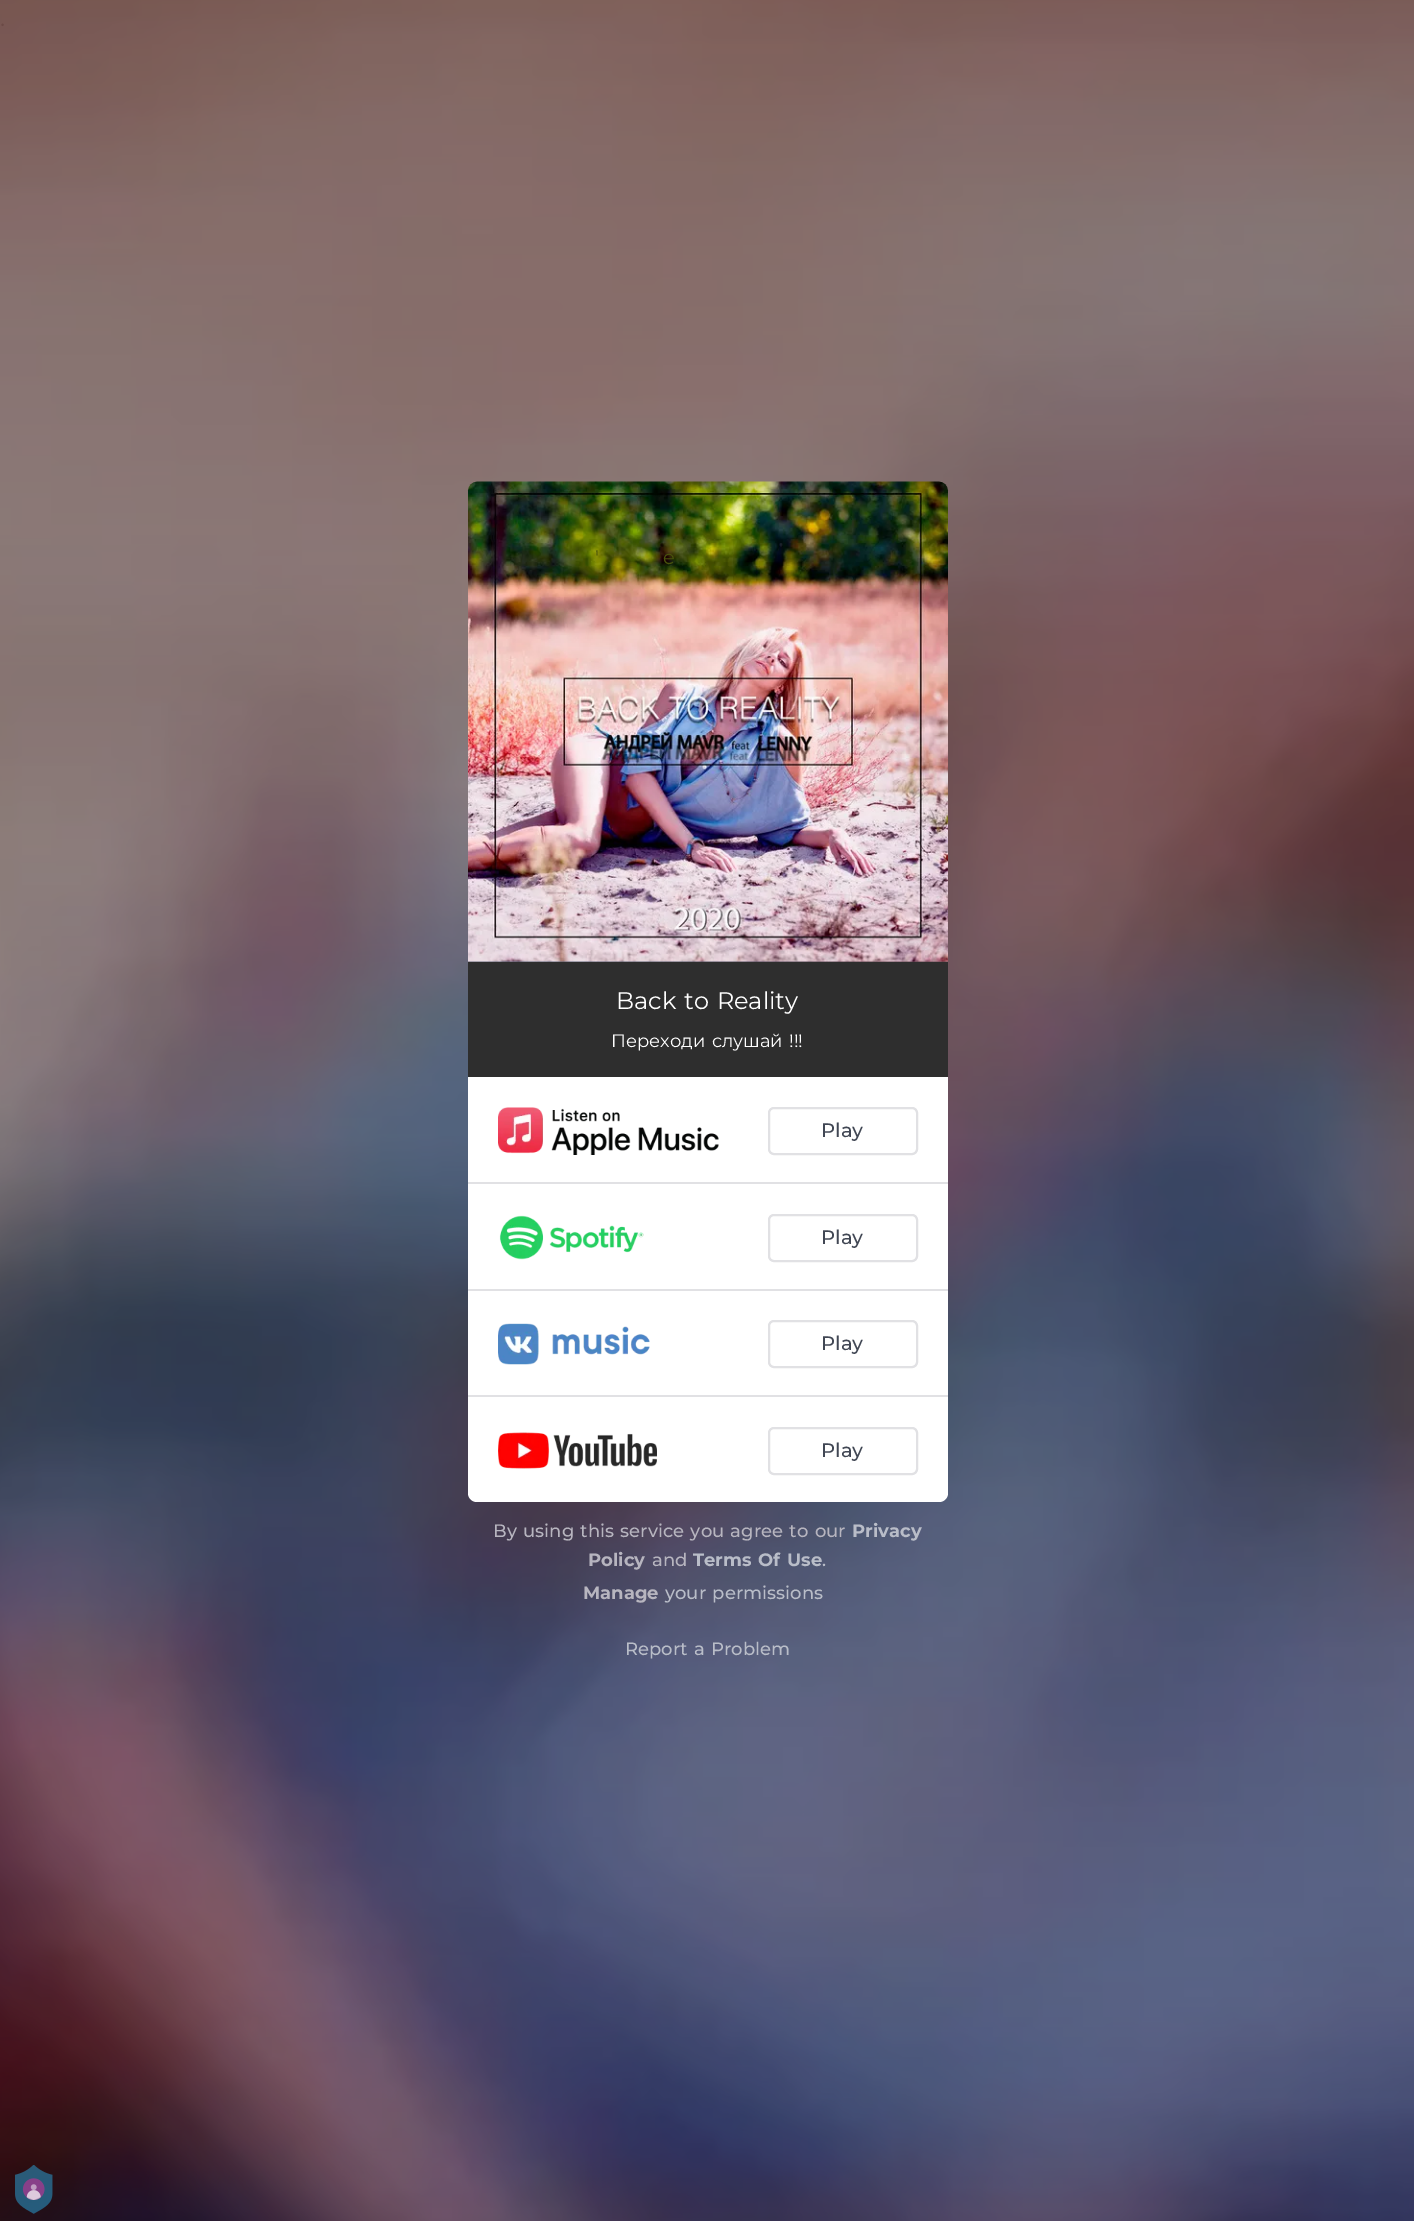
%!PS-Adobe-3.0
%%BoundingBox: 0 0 1414 2221
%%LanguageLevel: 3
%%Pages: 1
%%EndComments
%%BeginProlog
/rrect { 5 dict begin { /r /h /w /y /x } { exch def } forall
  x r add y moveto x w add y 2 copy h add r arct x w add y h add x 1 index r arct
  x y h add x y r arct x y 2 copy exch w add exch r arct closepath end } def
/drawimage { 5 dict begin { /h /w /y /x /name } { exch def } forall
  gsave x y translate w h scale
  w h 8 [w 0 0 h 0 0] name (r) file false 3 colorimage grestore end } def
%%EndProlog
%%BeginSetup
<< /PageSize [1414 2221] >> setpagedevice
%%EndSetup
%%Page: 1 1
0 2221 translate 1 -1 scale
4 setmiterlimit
1 setgray
0 0 1414 2221 rectfill
(images/1.raw) 0 0 1414 2221 drawimage
(images/2.raw) 467 481 482 481 drawimage
0.18 setgray
468 962 480 115 rectfill
1 setgray
newpath 468 1077 moveto 948 1077 lineto 948 1493 lineto 948 1498 944 1502 939 1502 curveto 477 1502 lineto 472 1502 468 1498 468 1493 curveto closepath fill
0.882 0.882 0.894 setrgbcolor
468 1182 480 2 rectfill
(images/3.raw) 498 1107 221 48 drawimage
2 setlinewidth
769 1108 148 46 5 rrect stroke
468 1289 480 2 rectfill
(images/4.raw) 499 1215 145 45 drawimage
769 1215 148 46 5 rrect stroke
468 1395 480 2 rectfill
(images/5.raw) 498 1323 152 42 drawimage
769 1321 148 46 5 rrect stroke
(images/6.raw) 498 1432 159 37 drawimage
769 1428 148 46 5 rrect stroke
(images/7.raw) 15 2165 38 49 drawimage
/Montserrat-Regular [19.5 0 0 -19.5 0 0] selectfont
0.286 0.325 0.047 setrgbcolor
595 564 moveto 1.5 0 32 (') widthshow
663 564 moveto 1.5 0 32 (e) widthshow
/Montserrat-Regular [24 0 0 -24 0 0] selectfont
1 setgray
616 1009 moveto 1.5 0 32 (Back to Reality) widthshow
/Montserrat-Regular [18 0 0 -18 0 0] selectfont
611 1047 moveto 1.5 0 32 (Переходи слушай !!!) widthshow
/Montserrat-Medium [19.5 0 0 -19.5 0 0] selectfont
0.255 0.278 0.329 setrgbcolor
821 1137 moveto (Play) show
821 1244 moveto (Play) show
821 1350 moveto (Play) show
821 1457 moveto (Play) show
/Montserrat-Medium [18 0 0 -18 0 0] selectfont
0.718 0.71 0.749 setrgbcolor
493 1537 moveto 1.5 0 32 (By using this service you agree to our) widthshow
/Montserrat-Bold [18 0 0 -18 0 0] selectfont
0.725 0.741 0.784 setrgbcolor
852 1537 moveto (Privacy) show
0.718 0.71 0.749 setrgbcolor
588 1566 moveto (Policy) show
/Montserrat-Medium [18 0 0 -18 0 0] selectfont
652 1566 moveto (and) show
/Montserrat-Bold [18 0 0 -18 0 0] selectfont
0.725 0.741 0.784 setrgbcolor
693 1566 moveto 1.5 0 32 (Terms Of Use) widthshow
/Montserrat-Medium [18 0 0 -18 0 0] selectfont
822 1566 moveto (.) show
/Montserrat-Bold [18 0 0 -18 0 0] selectfont
0.718 0.71 0.749 setrgbcolor
583 1599 moveto (Manage) show
/Montserrat-Medium [18 0 0 -18 0 0] selectfont
0.725 0.741 0.784 setrgbcolor
665 1599 moveto 1.5 0 32 (your permissions) widthshow
625 1655 moveto 1.5 0 32 (Report a Problem) widthshow
showpage
%%EOF
